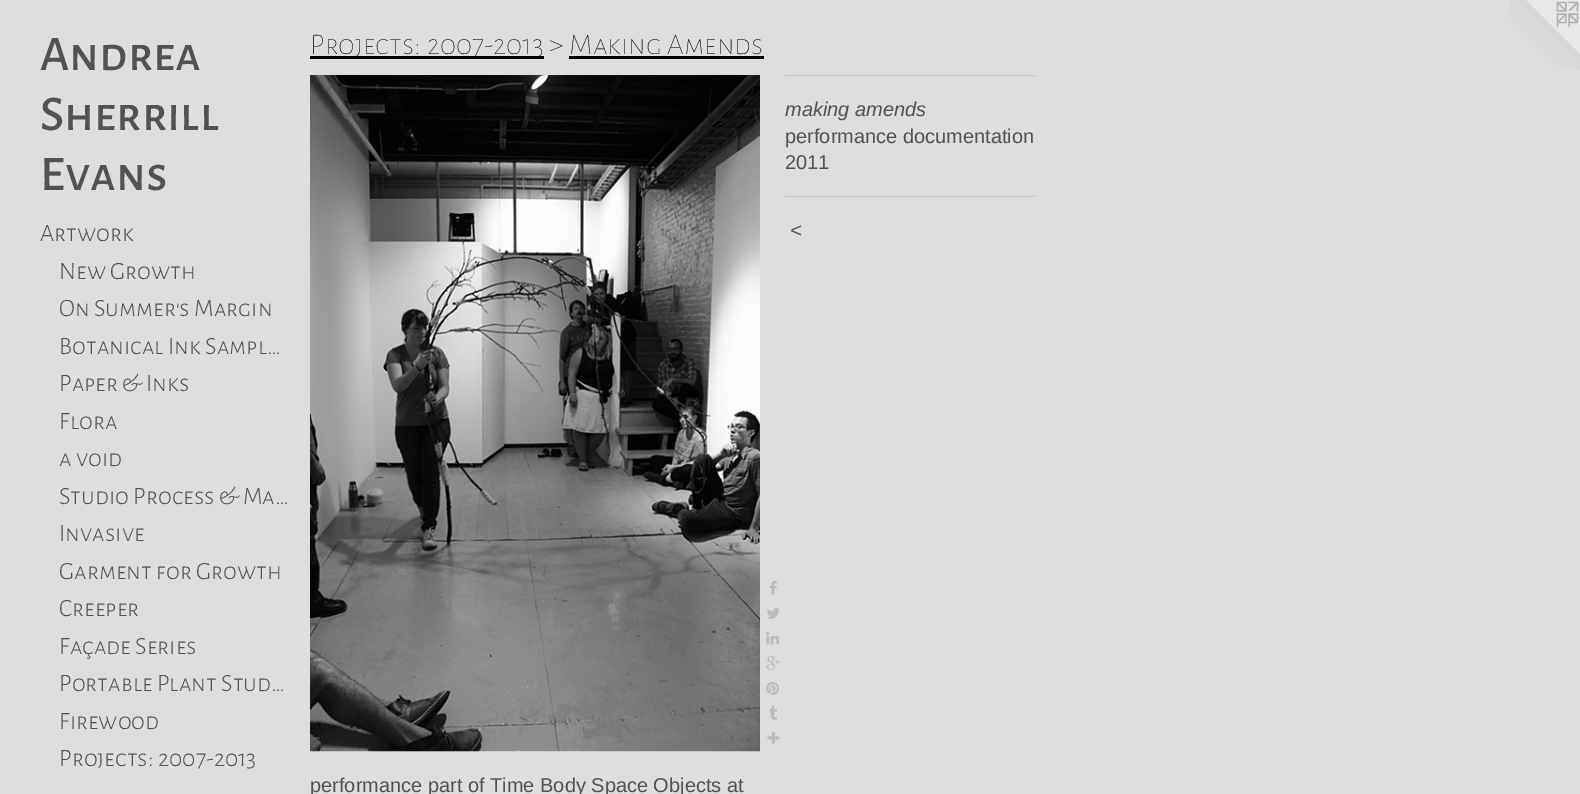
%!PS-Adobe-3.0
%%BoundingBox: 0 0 1580 794
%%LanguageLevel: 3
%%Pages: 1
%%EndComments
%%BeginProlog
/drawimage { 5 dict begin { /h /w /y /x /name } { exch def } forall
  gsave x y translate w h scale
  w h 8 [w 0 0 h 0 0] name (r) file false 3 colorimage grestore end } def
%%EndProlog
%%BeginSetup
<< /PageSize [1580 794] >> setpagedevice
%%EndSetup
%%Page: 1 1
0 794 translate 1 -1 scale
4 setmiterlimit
0.875 0.871 0.867 setrgbcolor
0 0 1580 794 rectfill
0.004 setgray
310 56 234 3 rectfill
569 56 195 3 rectfill
(images/1.raw) 310 75 450 677 drawimage
(images/2.raw) 769 581 8 14 drawimage
(images/3.raw) 767 608 13 11 drawimage
(images/4.raw) 766 632 13 13 drawimage
(images/5.raw) 766 655 14 15 drawimage
(images/6.raw) 766 682 13 13 drawimage
(images/7.raw) 769 705 9 15 drawimage
(images/8.raw) 767 732 13 12 drawimage
0.765 0.761 0.757 setrgbcolor
785 75 250 1 rectfill
785 196 250 1 rectfill
(images/9.raw) 1510 0 70 70 drawimage
/AlegreyaSansSC-Medium [50 0 0 -50 0 0] selectfont
0.322 setgray
40 70 moveto (Andrea) show
40 130 moveto (Sherrill) show
40 190 moveto (Evans) show
/AlegreyaSansSC-Light [25 0 0 -25 0 0] selectfont
40 241 moveto (Artwork) show
59 279 moveto (New Growth) show
59 316 moveto (On Summer's Margin) show
59 354 moveto (Botanical Ink Sampl…) show
59 391 moveto (Paper & Inks) show
59 429 moveto (Flora) show
59 466 moveto (a void) show
59 504 moveto (Studio Process & Ma…) show
59 541 moveto (Invasive) show
59 579 moveto (Garment for Growth) show
59 616 moveto (Creeper) show
59 654 moveto (Façade Series) show
59 691 moveto (Portable Plant Stud…) show
59 729 moveto (Firewood) show
59 766 moveto (Projects: 2007-2013) show
/AlegreyaSansSC-Thin [30 0 0 -30 0 0] selectfont
0.004 setgray
310 54 moveto (Projects: 2007-2013 > Making Amends) show
/LiberationSans-Italic [20 0 0 -20 0 0] selectfont
0.322 setgray
785 116 moveto (making amends) show
/LiberationSans-Regular [20 0 0 -20 0 0] selectfont
785 143 moveto (performance documentation) show
785 169 moveto (2011) show
/LiberationSans-Italic [20 0 0 -20 0 0] selectfont
790 237 moveto 1 0 (<) ashow
/LiberationSans-Regular [20 0 0 -20 0 0] selectfont
310 792 moveto (performance part of Time Body Space Objects at) show
showpage
%%EOF
